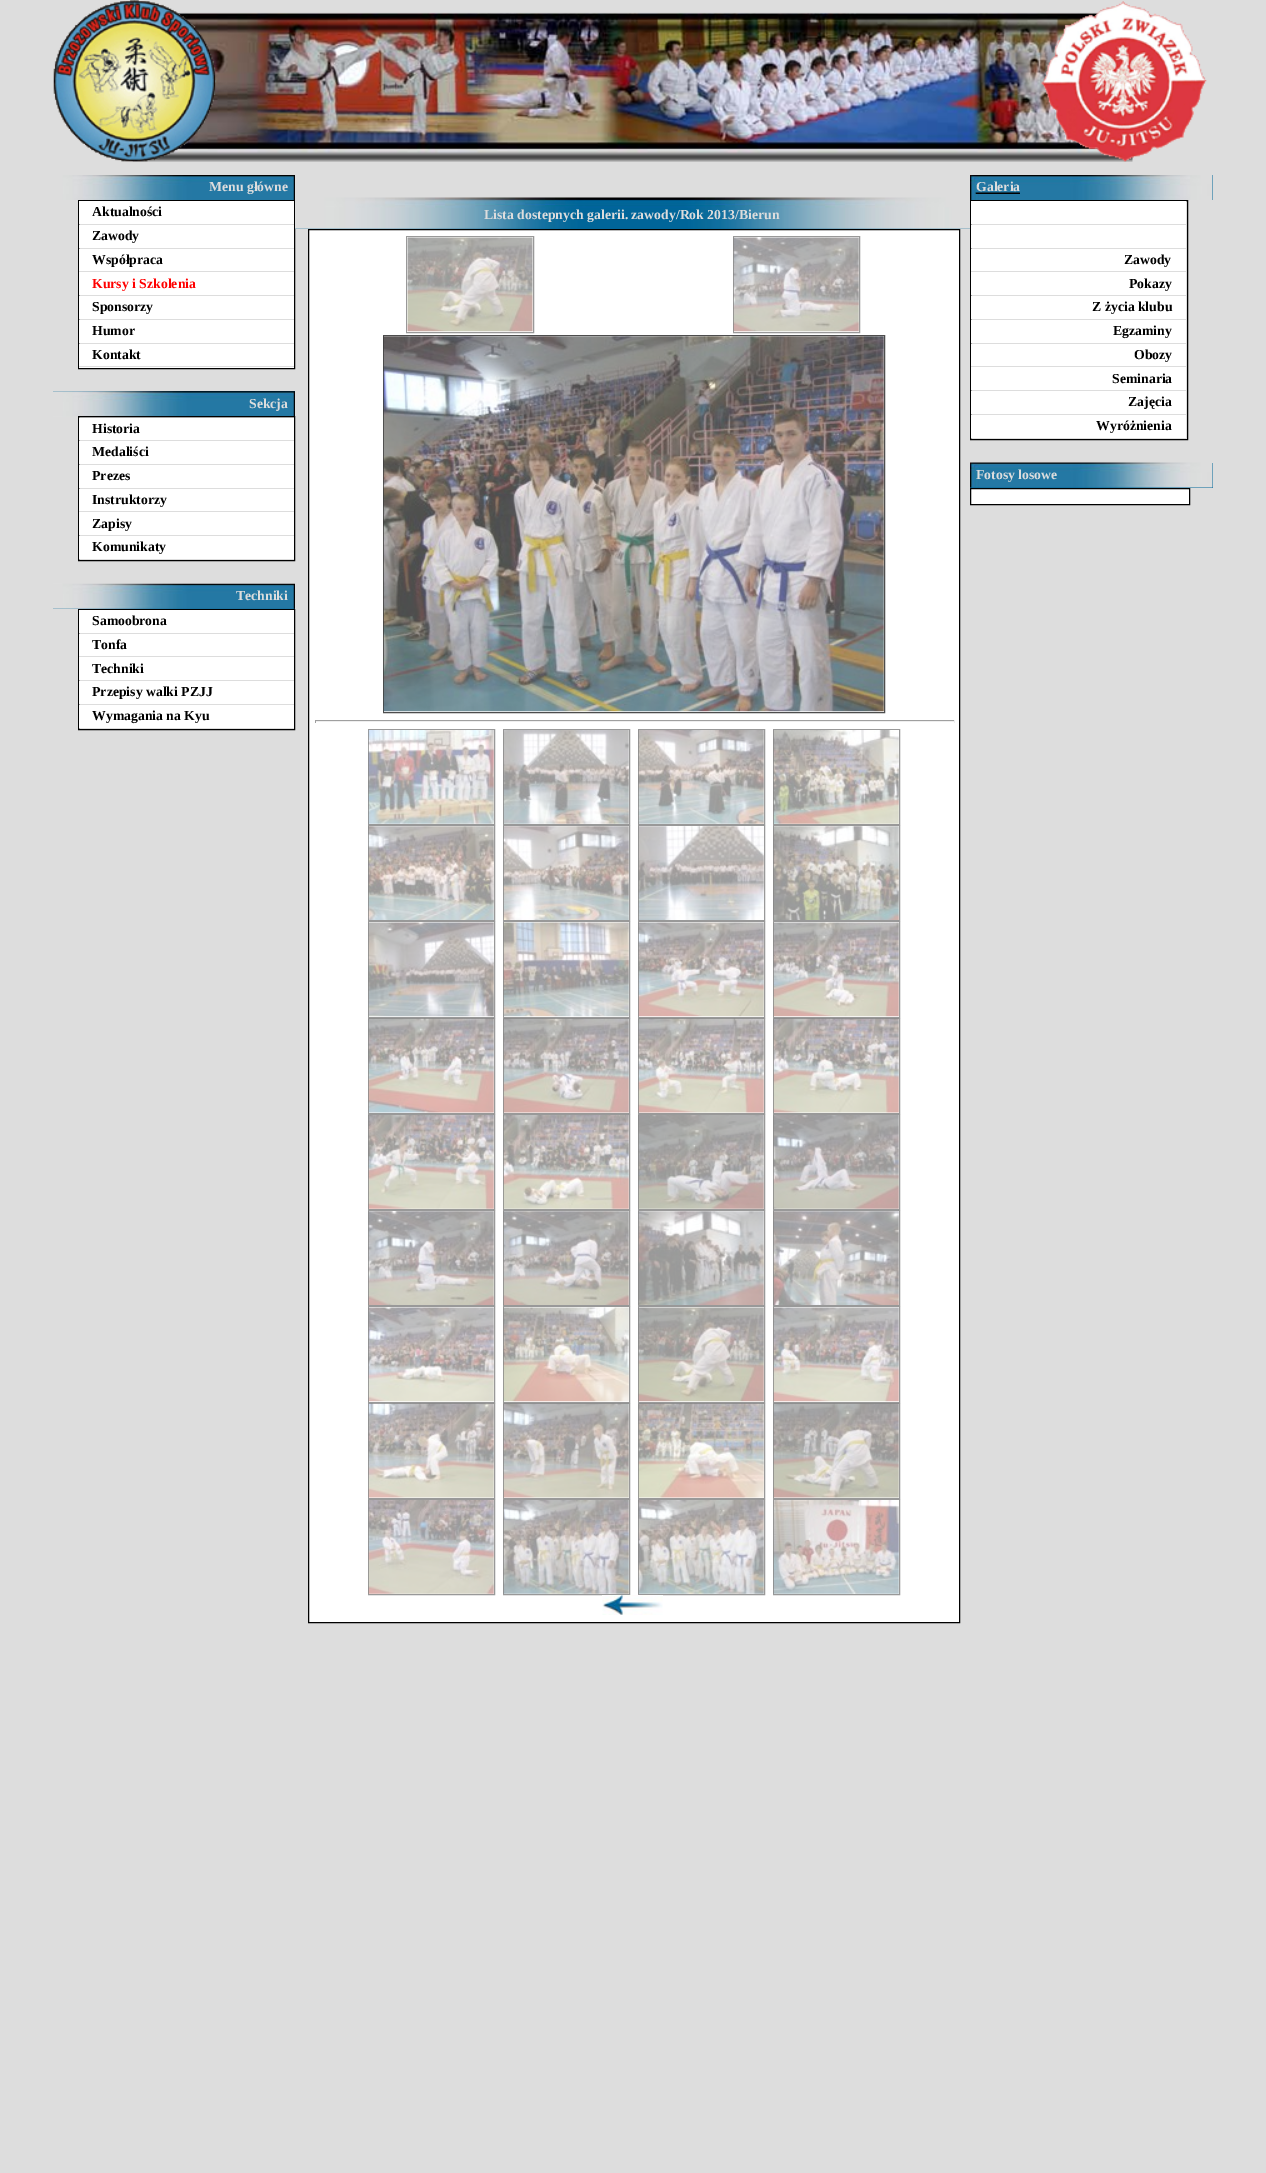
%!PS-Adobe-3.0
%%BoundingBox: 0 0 1266 2173
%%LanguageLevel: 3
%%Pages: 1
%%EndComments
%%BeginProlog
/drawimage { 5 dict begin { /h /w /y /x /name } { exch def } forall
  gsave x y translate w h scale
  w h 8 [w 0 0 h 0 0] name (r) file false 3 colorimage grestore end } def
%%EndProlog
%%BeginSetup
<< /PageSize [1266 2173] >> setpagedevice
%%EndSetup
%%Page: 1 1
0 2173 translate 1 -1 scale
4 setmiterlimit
0.867 setgray
0 0 1266 2173 rectfill
(images/3.raw) 132 12 1001 150 drawimage
(images/1.raw) 53 0 164 162 drawimage
(images/2.raw) 1041 1 166 161 drawimage
(images/4.raw) 53 175 242 25 drawimage
0 setgray
78.5 200.5 216 168 rectstroke
1 setgray
79 201 215 23 rectfill
79 225 215 23 rectfill
79 249 215 46 rectfill
0.867 setgray
79 271 215 1 rectfill
1 setgray
79 296 215 23 rectfill
79 320 215 23 rectfill
79 344 215 24 rectfill
0.867 setgray
79 366 215 1 rectfill
(images/5.raw) 53 391 242 26 drawimage
0 setgray
78.5 416.5 216 144 rectstroke
1 setgray
79 418 215 22 rectfill
79 441 215 23 rectfill
79 465 215 23 rectfill
79 489 215 46 rectfill
0.867 setgray
79 511 215 1 rectfill
1 setgray
79 536 215 23 rectfill
(images/6.raw) 53 583 242 26 drawimage
0 setgray
78.5 609.5 216 120 rectstroke
1 setgray
79 610 215 23 rectfill
79 634 215 46 rectfill
0.867 setgray
79 656 215 1 rectfill
1 setgray
79 681 215 23 rectfill
79 705 215 23 rectfill
(images/7.raw) 295 197 675 32 drawimage
newpath 308.5 229.5 moveto 959.5 229.5 lineto 959.5 1622.5 lineto 308.5 1622.5 lineto closepath gsave fill grestore
0 setgray
stroke
0.6 setgray
406.5 236.5 127 96 rectstroke
733.5 236.5 126 96 rectstroke
(images/8.raw) 407 237 126 95 drawimage
(images/9.raw) 733 237 126 95 drawimage
0.302 setgray
383.5 335.5 501 377 rectstroke
(images/10.raw) 383 336 501 376 drawimage
0.624 setgray
315 720 640 1 rectfill
0.933 setgray
954 720 1 3 rectfill
315 721 640 1 rectfill
0.624 setgray
315 720 1 3 rectfill
0.6 setgray
368.5 729.5 126 95 rectstroke
503.5 729.5 126 95 rectstroke
638.5 729.5 126 95 rectstroke
773.5 729.5 126 95 rectstroke
(images/11.raw) 368 730 126 94 drawimage
(images/12.raw) 503 730 126 94 drawimage
(images/13.raw) 638 730 126 94 drawimage
(images/14.raw) 773 730 126 94 drawimage
368.5 825.5 126 95 rectstroke
503.5 825.5 126 95 rectstroke
638.5 825.5 126 95 rectstroke
773.5 825.5 126 95 rectstroke
(images/15.raw) 368 826 126 94 drawimage
(images/16.raw) 503 826 126 94 drawimage
(images/17.raw) 638 826 126 94 drawimage
(images/18.raw) 773 826 126 94 drawimage
368.5 921.5 126 96 rectstroke
503.5 921.5 126 96 rectstroke
638.5 921.5 126 96 rectstroke
773.5 921.5 126 96 rectstroke
(images/19.raw) 368 922 126 95 drawimage
(images/20.raw) 503 922 126 95 drawimage
(images/21.raw) 638 922 126 95 drawimage
(images/22.raw) 773 922 126 95 drawimage
368.5 1018.5 126 95 rectstroke
(images/23.raw) 368 1018 126 95 drawimage
503.5 1018.5 126 95 rectstroke
(images/24.raw) 503 1018 126 95 drawimage
638.5 1018.5 126 95 rectstroke
(images/25.raw) 638 1018 126 95 drawimage
773.5 1018.5 126 95 rectstroke
(images/26.raw) 773 1018 126 95 drawimage
368.5 1114.5 126 95 rectstroke
503.5 1114.5 126 95 rectstroke
638.5 1114.5 126 95 rectstroke
773.5 1114.5 126 95 rectstroke
(images/27.raw) 368 1115 126 94 drawimage
(images/28.raw) 503 1115 126 94 drawimage
(images/29.raw) 638 1115 126 94 drawimage
(images/30.raw) 773 1115 126 94 drawimage
368.5 1210.5 126 95 rectstroke
503.5 1210.5 126 95 rectstroke
638.5 1210.5 126 95 rectstroke
773.5 1210.5 126 95 rectstroke
(images/31.raw) 368 1211 126 94 drawimage
(images/32.raw) 503 1211 126 94 drawimage
(images/33.raw) 638 1211 126 94 drawimage
(images/34.raw) 773 1211 126 94 drawimage
368.5 1306.5 126 96 rectstroke
503.5 1306.5 126 96 rectstroke
638.5 1306.5 126 96 rectstroke
773.5 1306.5 126 96 rectstroke
(images/35.raw) 368 1307 126 95 drawimage
(images/36.raw) 503 1307 126 95 drawimage
(images/37.raw) 638 1307 126 95 drawimage
(images/38.raw) 773 1307 126 95 drawimage
368.5 1403.5 126 95 rectstroke
(images/39.raw) 368 1403 126 95 drawimage
503.5 1403.5 126 95 rectstroke
(images/40.raw) 503 1403 126 95 drawimage
638.5 1403.5 126 95 rectstroke
(images/41.raw) 638 1403 126 95 drawimage
773.5 1403.5 126 95 rectstroke
(images/42.raw) 773 1403 126 95 drawimage
368.5 1499.5 126 95 rectstroke
503.5 1499.5 126 95 rectstroke
638.5 1499.5 126 95 rectstroke
773.5 1499.5 126 95 rectstroke
(images/43.raw) 368 1500 126 94 drawimage
(images/44.raw) 503 1500 126 94 drawimage
(images/45.raw) 638 1500 126 94 drawimage
(images/46.raw) 773 1500 126 94 drawimage
(images/47.raw) 602 1595 61 20 drawimage
0 0.4 0.6 setrgbcolor
1212 175 1 25 rectfill
(images/48.raw) 970 175 243 25 drawimage
0 setgray
976 193 44 1 rectfill
970.5 200.5 217 239 rectstroke
1 setgray
971 201 215 23 rectfill
971 225 215 23 rectfill
971 249 215 46 rectfill
0.867 setgray
971 271 215 1 rectfill
1 setgray
971 296 215 23 rectfill
971 320 215 23 rectfill
971 344 215 46 rectfill
0.867 setgray
971 366 215 1 rectfill
1 setgray
971 391 215 23 rectfill
971 415 215 23 rectfill
0 0.4 0.6 setrgbcolor
970 463 243 25 rectfill
(images/49.raw) 970 462 243 26 drawimage
1 setgray
newpath 970.5 488.5 moveto 1189.5 488.5 lineto 1189.5 504.5 lineto 970.5 504.5 lineto closepath gsave fill grestore
0 setgray
stroke
/LiberationSerif-Bold [13.75 0 0 -13.75 0 0] selectfont
0.867 setgray
209 191 moveto (Menu główne) show
0 setgray
92 216 moveto (Aktualności) show
92 240 moveto (Zawody) show
92 264 moveto (Współpraca) show
1 0 0 setrgbcolor
92 288 moveto (Kursy i Szkolenia) show
0 setgray
92 311 moveto (Sponsorzy) show
92 335 moveto (Humor) show
92 359 moveto (Kontakt) show
0.867 setgray
249 408 moveto (Sekcja) show
0 setgray
92 433 moveto (Historia) show
92 456 moveto (Medaliści) show
92 480 moveto (Prezes) show
92 504 moveto (Instruktorzy) show
92 528 moveto (Zapisy) show
92 551 moveto (Komunikaty) show
0.867 setgray
236 600 moveto (Techniki) show
0 setgray
92 625 moveto (Samoobrona) show
92 649 moveto (Tonfa) show
92 673 moveto (Techniki) show
92 696 moveto (Przepisy walki PZJJ) show
92 720 moveto (Wymagania na Kyu) show
0.867 setgray
484 219 moveto (Lista dostepnych galerii. zawody/Rok 2013/Bierun) show
976 191 moveto (Galeria) show
0 setgray
1124 264 moveto (Zawody) show
1129 288 moveto (Pokazy) show
1092 311 moveto (Z życia klubu) show
1113 335 moveto (Egzaminy) show
1134 359 moveto (Obozy) show
1112 383 moveto (Seminaria) show
1128 406 moveto (Zajęcia) show
1096 430 moveto (Wyróżnienia) show
0.867 setgray
976 479 moveto (Fotosy losowe) show
showpage
%%EOF
